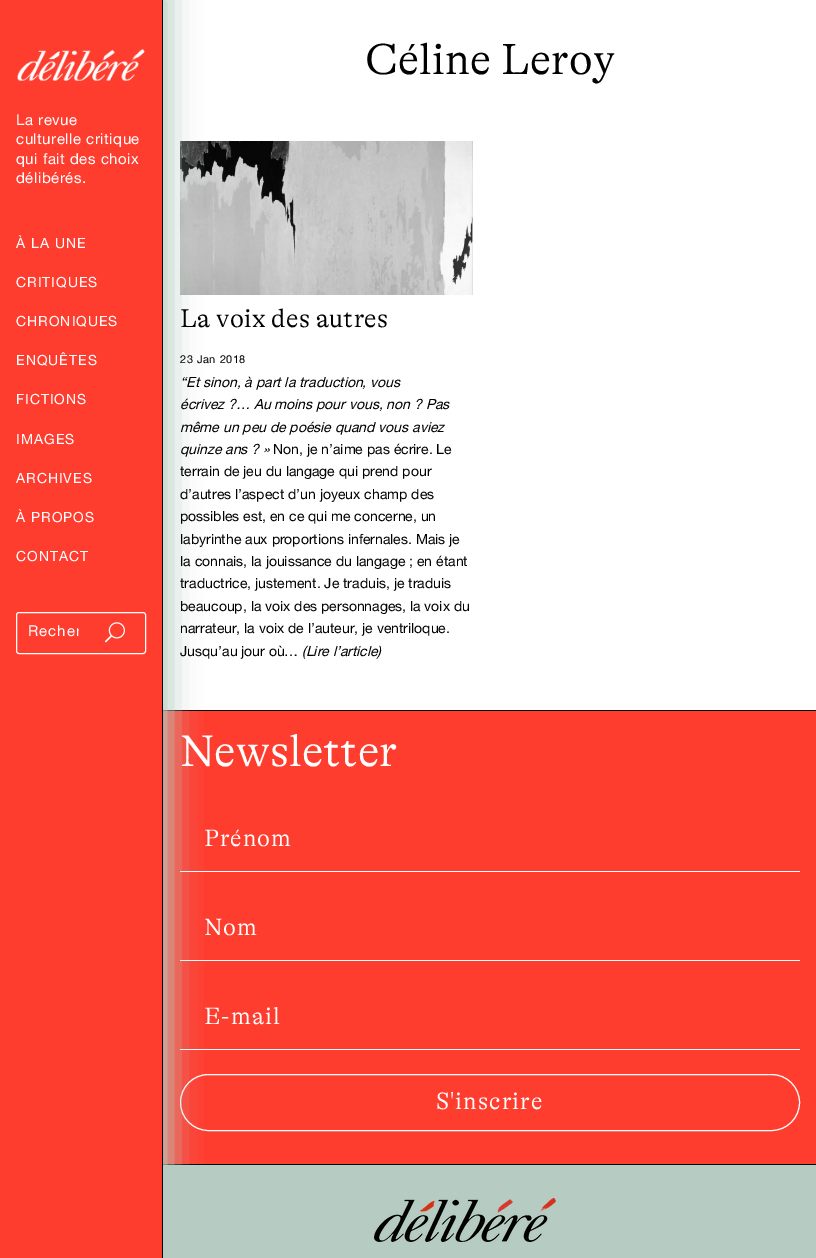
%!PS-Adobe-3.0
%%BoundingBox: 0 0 816 1258
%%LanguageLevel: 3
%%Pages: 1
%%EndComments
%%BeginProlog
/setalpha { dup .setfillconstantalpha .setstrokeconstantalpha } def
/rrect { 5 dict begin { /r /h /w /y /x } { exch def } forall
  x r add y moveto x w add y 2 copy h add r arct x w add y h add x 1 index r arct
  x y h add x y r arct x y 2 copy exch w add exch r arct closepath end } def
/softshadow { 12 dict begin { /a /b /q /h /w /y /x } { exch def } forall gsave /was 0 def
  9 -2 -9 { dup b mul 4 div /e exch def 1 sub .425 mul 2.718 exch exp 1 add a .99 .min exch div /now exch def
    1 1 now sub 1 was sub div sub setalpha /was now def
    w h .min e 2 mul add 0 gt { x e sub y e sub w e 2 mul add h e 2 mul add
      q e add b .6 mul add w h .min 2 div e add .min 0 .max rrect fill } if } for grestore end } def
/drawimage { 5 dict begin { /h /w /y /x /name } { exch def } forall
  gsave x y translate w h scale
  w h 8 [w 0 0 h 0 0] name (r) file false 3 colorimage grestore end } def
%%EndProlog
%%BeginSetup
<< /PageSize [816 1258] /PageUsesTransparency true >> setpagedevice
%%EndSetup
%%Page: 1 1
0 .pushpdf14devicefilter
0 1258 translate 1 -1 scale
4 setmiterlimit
1 setgray
0 0 816 1258 rectfill
(images/3.raw) 180 141 293 154 drawimage
1 0.239 0.184 setrgbcolor
163 711 653 453 rectfill
0 setgray
163 710 653 1 rectfill
1 setgray
180 871 620 1 rectfill
180 960 620 1 rectfill
180 1049 620 1 rectfill
180.5 1074.5 619 56 28 rrect stroke
0.714 0.8 0.765 setrgbcolor
163 1165 653 93 rectfill
0 setgray
163 1164 653 1 rectfill
0.714 0.8 0.765 setrgbcolor
-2 -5 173 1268 0 14.5 1 softshadow
1 0.239 0.184 setrgbcolor
0 0 162 1258 rectfill
0 setgray
162 0 1 1258 rectfill
(images/1.raw) 17 49 128 32 drawimage
1 setgray
16.5 612.5 129 41 2.5 rrect stroke
(images/2.raw) 105 622 20 21 drawimage
(images/4.raw) 374 1198 182 44 drawimage
/HelveticaNeue-Regular [15 0 0 -15 0 0] selectfont
16 125 moveto 0.5 0 (La revue) ashow
16 144 moveto 0.5 0 (culturelle critique) ashow
16 164 moveto 0.5 0 (qui fait des choix) ashow
16 183 moveto 0.5 0 (délibérés.) ashow
/HelveticaNeue-Regular [14 0 0 -14 0 0] selectfont
16 248 moveto 1 0 (À LA UNE) ashow
16 287 moveto 1 0 (CRITIQUES) ashow
16 326 moveto 1 0 (CHRONIQUES) ashow
16 365 moveto 1 0 (ENQUÊTES) ashow
16 404 moveto 1 0 (FICTIONS) ashow
16 444 moveto 1 0 (IMAGES) ashow
16 483 moveto 1 0 (ARCHIVES) ashow
16 522 moveto 1 0 (À PROPOS) ashow
16 561 moveto 1 0 (CONTACT) ashow
gsave
28 624 51 18 rectclip
/HelveticaNeue-Regular [15 0 0 -15 0 0] selectfont
28 636 moveto 1 0 (Recher) ashow
grestore
/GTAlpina-Light [44 0 0 -44 0 0] selectfont
0 setgray
365 74 moveto 0.25 0 (Céline Leroy) ashow
/GTAlpina-Light [26 0 0 -26 0 0] selectfont
180 327 moveto 0.25 0 (La voix des autres) ashow
/HelveticaNeue-Regular [11 0 0 -11 0 0] selectfont
180 363 moveto 0.5 0 (23 Jan 2018) ashow
/HelveticaNeue-Italic [14 0 0 -14 0 0] selectfont
180 387 moveto (“Et sinon, à part la traduction, vous) show
180 409 moveto (écrivez ?… Au moins pour vous, non ? Pas) show
180 432 moveto (même un peu de poésie quand vous aviez) show
180 454 moveto (quinze ans ? ») show
/HelveticaNeue-Regular [14 0 0 -14 0 0] selectfont
273 454 moveto (Non, je n’aime pas écrire. Le) show
180 476 moveto (terrain de jeu du langage qui prend pour) show
180 499 moveto (d’autres l’aspect d’un joyeux champ des) show
180 521 moveto (possibles est, en ce qui me concerne, un) show
180 544 moveto (labyrinthe aux proportions infernales. Mais je) show
180 566 moveto (la connais, la jouissance du langage ; en étant) show
180 588 moveto (traductrice, justement. Je traduis, je traduis) show
180 611 moveto (beaucoup, la voix des personnages, la voix du) show
180 633 moveto (narrateur, la voix de l’auteur, je ventriloque.) show
180 656 moveto (Jusqu’au jour où…) show
/HelveticaNeue-Italic [14 0 0 -14 0 0] selectfont
302 656 moveto (\(Lire l’article\)) show
/GTAlpina-Light [45 0 0 -45 0 0] selectfont
1 setgray
180 766 moveto (Newsletter) show
/GTAlpina-Light [24 0 0 -24 0 0] selectfont
204 846 moveto 1 0 (Prénom) ashow
204 935 moveto 1 0 (Nom) ashow
204 1024 moveto 1 0 (E-mail) ashow
436 1109 moveto 1 0 (S'inscrire) ashow
.poppdf14devicefilter showpage
%%EOF
